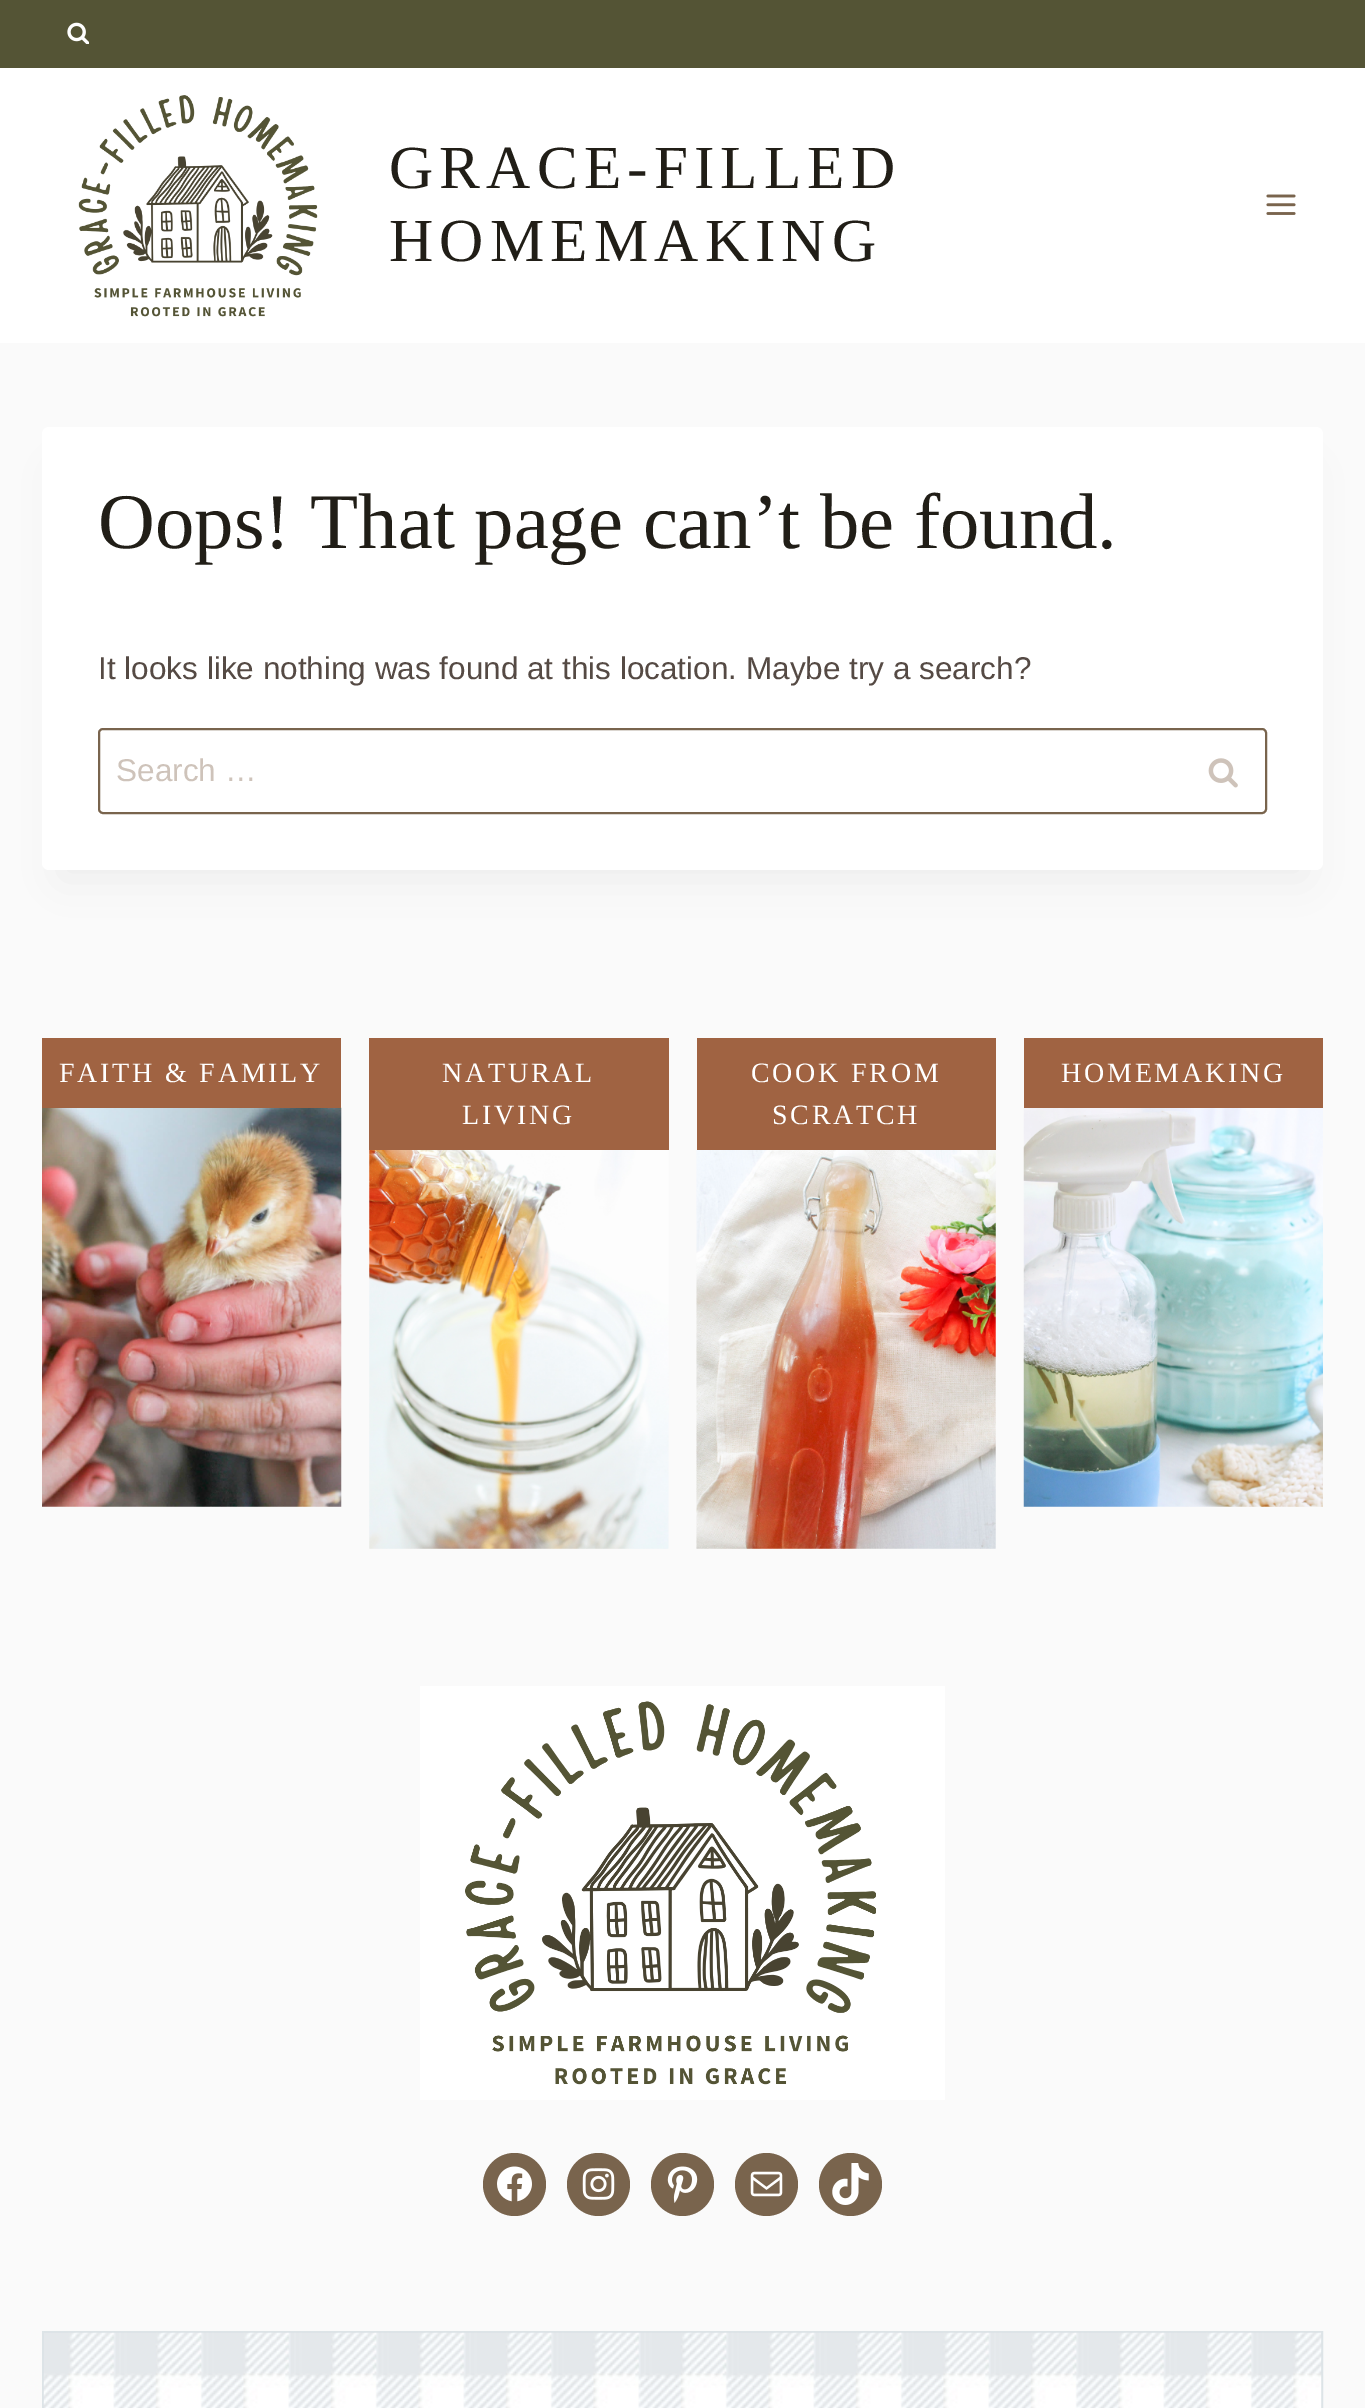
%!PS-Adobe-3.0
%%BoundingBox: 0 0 1365 2408
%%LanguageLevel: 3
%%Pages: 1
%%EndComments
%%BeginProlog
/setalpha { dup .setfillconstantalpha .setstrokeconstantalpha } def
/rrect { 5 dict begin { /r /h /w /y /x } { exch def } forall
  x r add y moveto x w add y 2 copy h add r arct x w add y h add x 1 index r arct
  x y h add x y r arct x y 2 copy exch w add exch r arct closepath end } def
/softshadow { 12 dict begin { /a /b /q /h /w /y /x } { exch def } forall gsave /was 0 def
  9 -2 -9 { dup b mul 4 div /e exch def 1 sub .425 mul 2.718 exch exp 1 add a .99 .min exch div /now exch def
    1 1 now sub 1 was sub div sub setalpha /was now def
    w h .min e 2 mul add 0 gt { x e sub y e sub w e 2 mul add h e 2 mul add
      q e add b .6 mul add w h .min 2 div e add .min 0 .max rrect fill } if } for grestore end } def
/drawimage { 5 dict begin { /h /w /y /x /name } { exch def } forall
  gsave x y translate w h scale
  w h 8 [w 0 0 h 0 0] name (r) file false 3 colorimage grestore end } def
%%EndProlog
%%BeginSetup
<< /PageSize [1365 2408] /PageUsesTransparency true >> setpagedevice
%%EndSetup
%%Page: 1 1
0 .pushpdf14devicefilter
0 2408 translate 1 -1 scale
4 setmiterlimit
0.98 setgray
0 0 1365 2408 rectfill
1 setgray
0 68 1365 275 rectfill
0.329 0.329 0.208 setrgbcolor
0 0 1365 68 rectfill
(images/1.raw) 67 22 22 22 drawimage
(images/2.raw) 78 95 240 222 drawimage
(images/3.raw) 1266 194 30 21 drawimage
0 setgray
60 471 1246 408 0 22 0.05 softshadow
1 setgray
42 427 1281 443 7 rrect fill
0.475 0.392 0.302 setrgbcolor
2 setlinewidth
99 729 1167 84 4 rrect stroke
(images/4.raw) 1208 758 30 30 drawimage
(images/5.raw) 42 1107 300 400 drawimage
0.627 0.388 0.259 setrgbcolor
42 1038 299 70 rectfill
369 1038 300 112 rectfill
(images/6.raw) 369 1150 300 399 drawimage
(images/7.raw) 696 1149 300 400 drawimage
697 1038 299 112 rectfill
(images/8.raw) 1023 1107 300 400 drawimage
1024 1038 299 70 rectfill
(images/9.raw) 420 1686 525 414 drawimage
0.475 0.392 0.302 setrgbcolor
newpath 514.5 2184.5 31.5 0 360 arc closepath fill
(images/10.raw) 497 2166 35 36 drawimage
newpath 598.5 2184.5 31.5 0 360 arc closepath fill
(images/11.raw) 582 2168 33 32 drawimage
newpath 682.5 2184.5 31.5 0 360 arc closepath fill
(images/12.raw) 667 2166 31 37 drawimage
newpath 766.5 2184.5 31.5 0 360 arc closepath fill
(images/13.raw) 750 2171 33 26 drawimage
newpath 850.5 2184.5 31.5 0 360 arc closepath fill
(images/14.raw) 832 2163 37 42 drawimage
0.867 0.894 0.906 setrgbcolor
43 2332 1279 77 rectstroke
(images/15.raw) 43 2332 1279 76 drawimage
/LiberationSerif-Regular [61.25 0 0 -61.25 0 0] selectfont
0.129 0.118 0.09 setrgbcolor
389 188 moveto 6.1 0 (GRACE-FILLED) ashow
389 261 moveto 6.1 0 (HOMEMAKING) ashow
/LiberationSerif-Regular [78.75 0 0 -78.75 0 0] selectfont
98 548 moveto (Oops! That page can’t be found.) show
/LiberationSans-Regular [31.5 0 0 -31.5 0 0] selectfont
0.333 0.29 0.267 setrgbcolor
98 679 moveto (It looks like nothing was found at this location. Maybe try a search?) show
0.808 0.765 0.729 setrgbcolor
116 781 moveto (Search …) show
/LiberationSerif-Regular [28 0 0 -28 0 0] selectfont
1 setgray
59 1082 moveto 2.75 0 (FAITH & FAMILY) ashow
442 1082 moveto 2.75 0 (NATURAL) ashow
462 1124 moveto 2.75 0 (LIVING) ashow
751 1082 moveto 2.75 0 (COOK FROM) ashow
772 1124 moveto 2.75 0 (SCRATCH) ashow
1061 1082 moveto 2.75 0 (HOMEMAKING) ashow
.poppdf14devicefilter showpage
%%EOF
